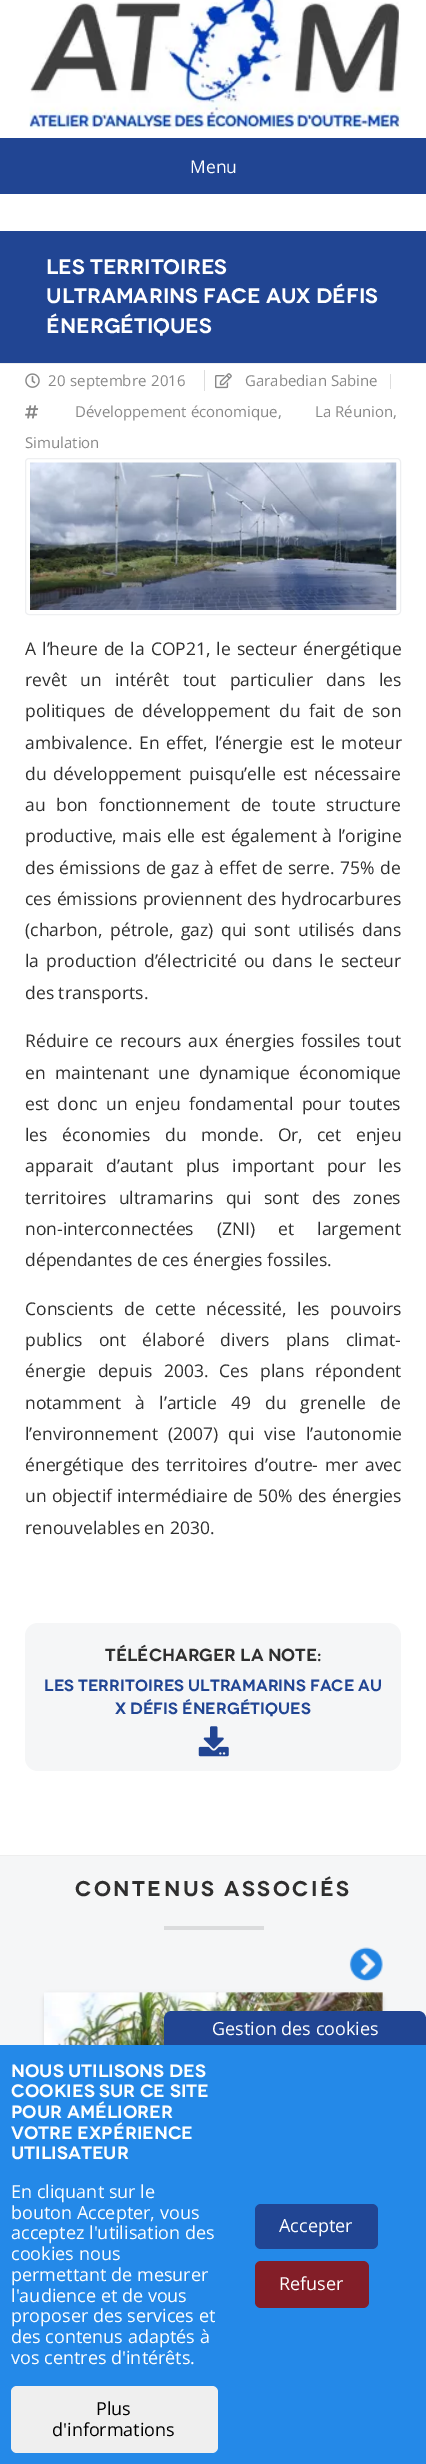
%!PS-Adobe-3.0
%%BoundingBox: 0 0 426 2464
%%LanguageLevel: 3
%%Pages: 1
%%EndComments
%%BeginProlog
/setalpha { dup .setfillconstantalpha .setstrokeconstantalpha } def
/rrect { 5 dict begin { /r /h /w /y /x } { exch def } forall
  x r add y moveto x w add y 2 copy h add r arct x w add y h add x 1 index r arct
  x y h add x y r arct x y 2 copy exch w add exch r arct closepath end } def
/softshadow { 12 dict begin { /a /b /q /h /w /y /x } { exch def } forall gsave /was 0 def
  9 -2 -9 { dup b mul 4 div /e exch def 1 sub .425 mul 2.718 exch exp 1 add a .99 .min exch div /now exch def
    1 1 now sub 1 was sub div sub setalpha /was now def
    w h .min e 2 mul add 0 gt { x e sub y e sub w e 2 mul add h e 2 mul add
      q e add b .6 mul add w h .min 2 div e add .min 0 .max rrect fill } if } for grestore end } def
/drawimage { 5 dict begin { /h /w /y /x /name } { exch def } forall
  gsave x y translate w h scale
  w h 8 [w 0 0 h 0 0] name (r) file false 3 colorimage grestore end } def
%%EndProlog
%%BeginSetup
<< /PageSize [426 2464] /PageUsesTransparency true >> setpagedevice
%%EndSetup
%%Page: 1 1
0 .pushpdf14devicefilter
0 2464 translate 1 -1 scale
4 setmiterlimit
1 setgray
0 0 426 2464 rectfill
(images/1.raw) 29 0 372 129 drawimage
0.129 0.271 0.576 setrgbcolor
0 138 426 56 rectfill
0 231 426 132 rectfill
0.933 setgray
0 363 426 1 rectfill
0.867 setgray
204 370 1 21 rectfill
(images/2.raw) 25 373 15 15 drawimage
390 374 1 15 rectfill
(images/3.raw) 215 373 17 16 drawimage
(images/4.raw) 25 405 14 14 drawimage
0.933 0.937 0.945 setrgbcolor
25.5 458.5 375 156 3.5 rrect stroke
(images/5.raw) 30 462 367 148 drawimage
0.961 0.965 0.969 setrgbcolor
25 1623 376 148 13 rrect fill
(images/6.raw) 198 1726 31 31 drawimage
0 1856 426 189 rectfill
0.933 setgray
0 1855 426 1 rectfill
0.859 0.863 0.867 setrgbcolor
164 1926 100 4 rectfill
(images/7.raw) 349 1947 34 35 drawimage
0 setgray
44 1994 339 369 5 2 0.12 softshadow
1 setgray
44 1993 339 368 5 rrect fill
(images/8.raw) 44 1992 339 53 drawimage
0.141 0.537 0.91 setrgbcolor
0 2045 426 419 rectfill
0.129 0.271 0.576 setrgbcolor
newpath 172 2011 moveto 418 2011 lineto 422.5 2011 426 2014.5 426 2019 curveto 426 2045 lineto 164 2045 lineto 164 2019 lineto 164 2014.5 167.5 2011 172 2011 curveto closepath fill
0.937 setgray
11 2386 207 67 6 rrect fill
0.129 0.271 0.576 setrgbcolor
255 2204 123 45 6 rrect fill
0.514 0.118 0.157 setrgbcolor
255 2261 114 47 6 rrect fill
/OpenSans-Regular [17.5 0 0 -17.5 0 0] selectfont
1 setgray
190 173 moveto (Menu) show
/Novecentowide-SemiBold [21 0 0 -21 0 0] selectfont
46 274 moveto (Les territoires) show
46 303 moveto (ultramarins face aux défis) show
46 333 moveto (énergétiques) show
/OpenSans-Regular [15 0 0 -15 0 0] selectfont
0.533 setgray
48 386 moveto 1 0 32 (20 septembre 2016) widthshow
245 386 moveto (Garabedian Sabine) show
75 417 moveto (Développement économique,) show
315 417 moveto (La Réunion,) show
25 448 moveto (Simulation) show
/OpenSans-Regular [17.5 0 0 -17.5 0 0] selectfont
0.184 setgray
25 655 moveto 1.5 0 32 (A l’heure de la COP21, le secteur énergétique) widthshow
25 686 moveto 8.75 0 32 (revêt un intérêt tout particulier dans les) widthshow
25 717 moveto 3.75 0 32 (politiques de développement du fait de son) widthshow
25 749 moveto 2 0 32 (ambivalence. En effet, l’énergie est le moteur) widthshow
25 780 moveto 2.5 0 32 (du développement puisqu’elle est nécessaire) widthshow
25 811 moveto 6.25 0 32 (au bon fonctionnement de toute structure) widthshow
25 842 moveto 1 0 32 (productive, mais elle est également à l’origine) widthshow
25 874 moveto 0.75 0 32 (des émissions de gaz à effet de serre. 75% de) widthshow
25 905 moveto 0.5 0 32 (ces émissions proviennent des hydrocarbures) widthshow
25 936 moveto 3 0 32 (\(charbon, pétrole, gaz\) qui sont utilisés dans) widthshow
25 967 moveto 2.75 0 32 (la production d’électricité ou dans le secteur) widthshow
25 999 moveto (des transports.) show
25 1047 moveto 2 0 32 (Réduire ce recours aux énergies fossiles tout) widthshow
25 1079 moveto 4.5 0 32 (en maintenant une dynamique économique) widthshow
25 1110 moveto 3.5 0 32 (est donc un enjeu fondamental pour toutes) widthshow
25 1141 moveto 9.75 0 32 (les économies du monde. Or, cet enjeu) widthshow
25 1172 moveto 8 0 32 (apparait d’autant plus important pour les) widthshow
25 1204 moveto 7.75 0 32 (territoires ultramarins qui sont des zones) widthshow
25 1235 moveto 18.5 0 32 (non-interconnectées \(ZNI\) et largement) widthshow
25 1266 moveto (dépendantes de ces énergies fossiles.) show
25 1315 moveto 6 0 32 (Conscients de cette nécessité, les pouvoirs) widthshow
25 1346 moveto 11.5 0 32 (publics ont élaboré divers plans climat-) widthshow
25 1377 moveto 6.75 0 32 (énergie depuis 2003. Ces plans répondent) widthshow
25 1409 moveto 9.5 0 32 (notamment à l’article 49 du grenelle de) widthshow
25 1440 moveto 5.5 0 32 (l’environnement \(2007\) qui vise l’autonomie) widthshow
25 1471 moveto 2.25 0 32 (énergétique des territoires d’outre- mer avec) widthshow
25 1502 moveto 0.5 0 32 (un objectif intermédiaire de 50% des énergies) widthshow
25 1534 moveto (renouvelables en 2030.) show
/Novecentowide-SemiBold [17.5 0 0 -17.5 0 0] selectfont
105 1661 moveto (Télécharger la note:) show
/Novecentowide-SemiBold [16.25 0 0 -16.25 0 0] selectfont
0.129 0.271 0.576 setrgbcolor
44 1691 moveto (Les territoires ultramarins face au) show
115 1714 moveto (x défis énergétiques) show
/Novecentowide-SemiBold [21.25 0 0 -21.25 0 0] selectfont
0.184 setgray
75 1896 moveto 2.5 0 (Contenus associés) ashow
/OpenSans-Regular [18 0 0 -18 0 0] selectfont
1 setgray
212 2035 moveto (Gestion des cookies) show
/Novecentowide-SemiBold [18 0 0 -18 0 0] selectfont
11 2077 moveto (Nous utilisons des) show
11 2097 moveto (cookies sur ce site) show
11 2118 moveto (pour améliorer) show
11 2139 moveto (votre expérience) show
11 2159 moveto (utilisateur) show
/OpenSans-Regular [18 0 0 -18 0 0] selectfont
11 2198 moveto (En cliquant sur le) show
11 2219 moveto (bouton Accepter, vous) show
11 2239 moveto (acceptez l'utilisation des) show
11 2260 moveto (cookies nous) show
11 2281 moveto (permettant de mesurer) show
11 2302 moveto (l'audience et de vous) show
11 2322 moveto (proposer des services et) show
11 2343 moveto (des contenus adaptés à) show
11 2364 moveto (vos centres d'intérêts.) show
0 setgray
96 2415 moveto (Plus) show
52 2436 moveto (d'informations) show
1 setgray
279 2232 moveto (Accepter) show
279 2290 moveto (Refuser) show
.poppdf14devicefilter showpage
%%EOF
